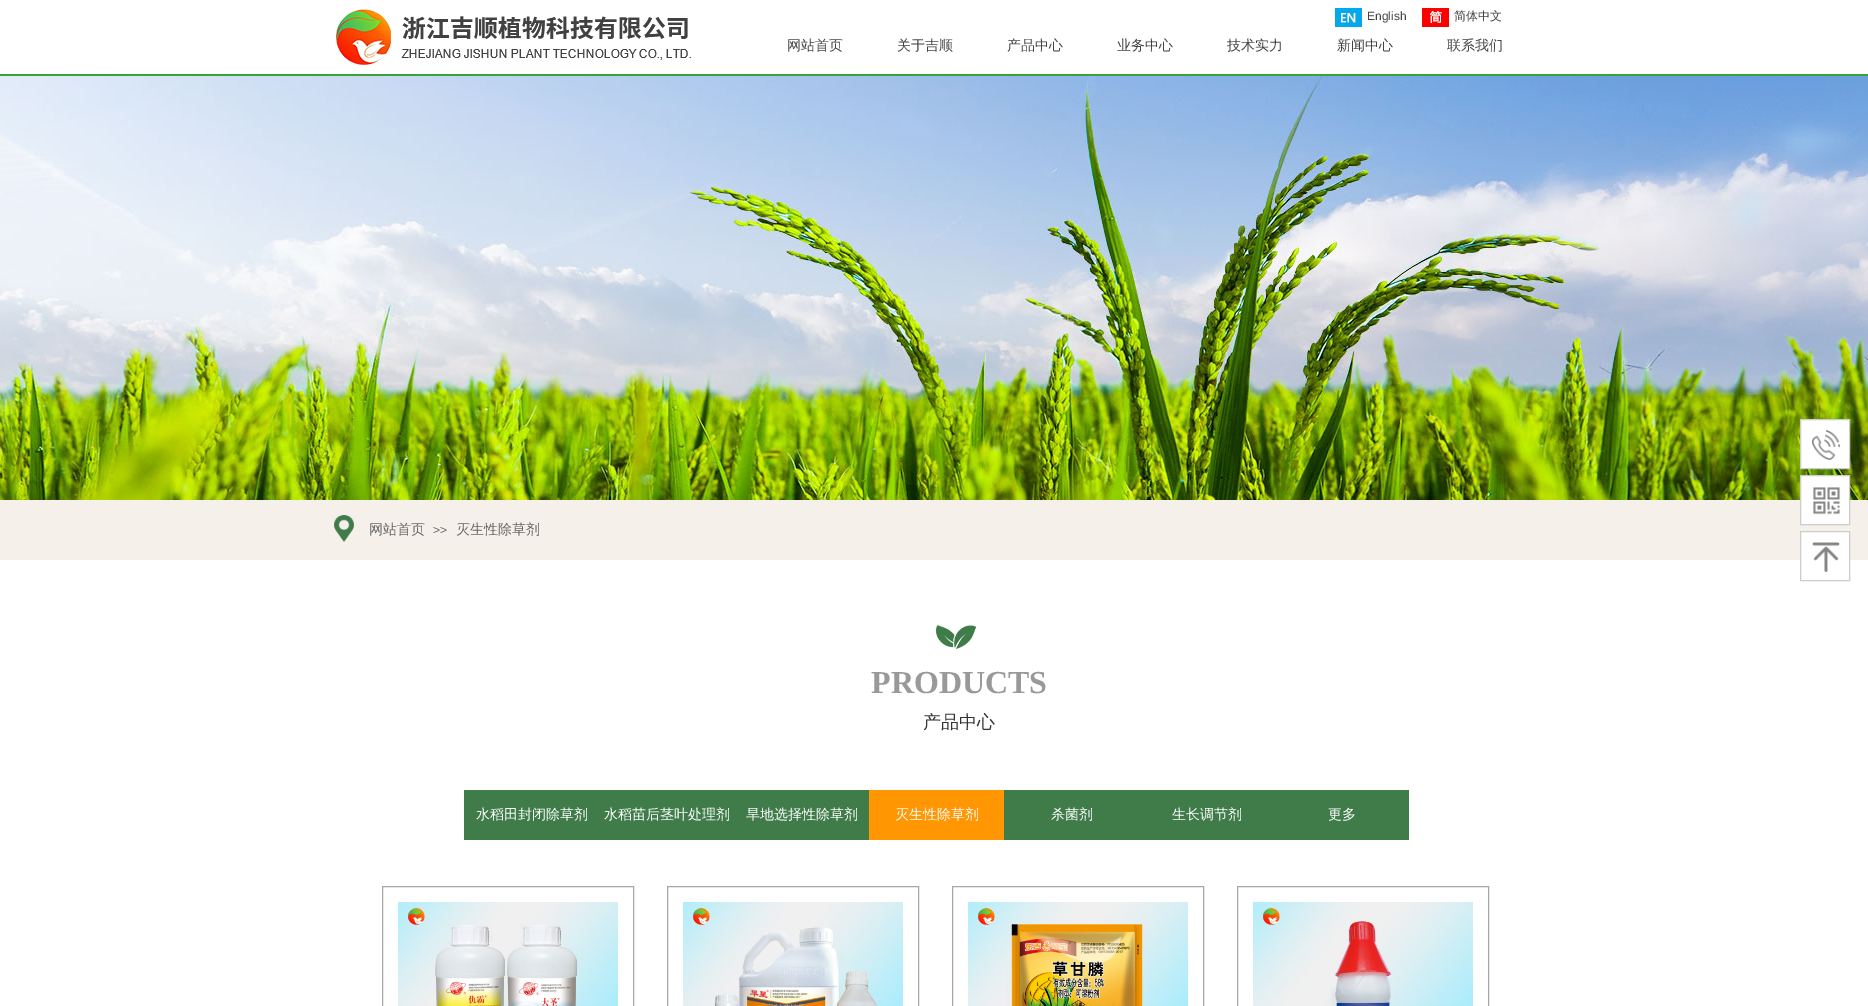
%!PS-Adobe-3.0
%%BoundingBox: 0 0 1868 1006
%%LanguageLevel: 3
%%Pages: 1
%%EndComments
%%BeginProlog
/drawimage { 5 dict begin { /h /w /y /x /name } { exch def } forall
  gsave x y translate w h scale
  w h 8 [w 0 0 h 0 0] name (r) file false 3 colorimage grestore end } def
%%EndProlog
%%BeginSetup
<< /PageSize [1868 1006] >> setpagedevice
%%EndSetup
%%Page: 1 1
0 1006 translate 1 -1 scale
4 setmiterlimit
1 setgray
0 0 1868 1006 rectfill
(images/1.raw) 336 9 355 56 drawimage
(images/2.raw) 1335 8 27 19 drawimage
(images/3.raw) 1422 8 27 19 drawimage
0.22 0.639 0.22 setrgbcolor
0 74 1868 2 rectfill
(images/4.raw) 0 76 1868 424 drawimage
0.961 0.945 0.918 setrgbcolor
0 500 1868 60 rectfill
(images/5.raw) 334 515 20 27 drawimage
(images/6.raw) 936 625 40 24 drawimage
0.247 0.486 0.29 setrgbcolor
464 790 405 50 rectfill
1 0.588 0.008 setrgbcolor
869 790 135 50 rectfill
0.247 0.486 0.29 setrgbcolor
1004 790 405 50 rectfill
0.655 setgray
382.5 886.5 251 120 rectstroke
(images/7.raw) 398 902 220 104 drawimage
667.5 886.5 251 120 rectstroke
(images/8.raw) 683 902 220 104 drawimage
952.5 886.5 251 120 rectstroke
(images/9.raw) 968 902 220 104 drawimage
1237.5 886.5 251 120 rectstroke
(images/10.raw) 1253 902 220 104 drawimage
1 setgray
newpath 1800.5 419.5 moveto 1849.5 419.5 lineto 1849.5 468.5 lineto 1800.5 468.5 lineto closepath gsave fill grestore
0.8 setgray
stroke
(images/11.raw) 1812 430 29 30 drawimage
1 setgray
newpath 1800.5 475.5 moveto 1849.5 475.5 lineto 1849.5 524.5 lineto 1800.5 524.5 lineto closepath gsave fill grestore
0.8 setgray
stroke
(images/12.raw) 1813 487 28 28 drawimage
1 setgray
1801 532 48 28 rectfill
0.8 setgray
1800.5 531.5 49 49 rectstroke
(images/13.raw) 1812 542 28 30 drawimage
/LiberationSans-Regular [12 0 0 -12 0 0] selectfont
0.263 setgray
1367 20 moveto (English) show
/WenQuanYiZenHei-Medium [12 0 0 -12 0 0] selectfont
1454 20 moveto (简体中文) show
/WenQuanYiZenHei-Medium [14 0 0 -14 0 0] selectfont
787 50 moveto (网站首页) show
897 50 moveto (关于吉顺) show
1007 50 moveto (产品中心) show
1117 50 moveto (业务中心) show
1227 50 moveto (技术实力) show
1337 50 moveto (新闻中心) show
1447 50 moveto (联系我们) show
0.4 setgray
369 534 moveto (网站首页) show
/LiberationSans-Regular [12 0 0 -12 0 0] selectfont
433 534 moveto (>>) show
/WenQuanYiZenHei-Medium [14 0 0 -14 0 0] selectfont
456 534 moveto (灭生性除草剂) show
/LiberationSerif-Bold [32 0 0 -32 0 0] selectfont
0.6 setgray
871 693 moveto (PRODUCTS) show
/WenQuanYiZenHei-Medium [18 0 0 -18 0 0] selectfont
0.2 setgray
923 728 moveto (产品中心) show
/WenQuanYiZenHei-Medium [14 0 0 -14 0 0] selectfont
1 setgray
476 819 moveto (水稻田封闭除草剂) show
604 819 moveto (水稻苗后茎叶处理剂) show
746 819 moveto (旱地选择性除草剂) show
895 819 moveto (灭生性除草剂) show
1051 819 moveto (杀菌剂) show
1172 819 moveto (生长调节剂) show
1328 819 moveto (更多) show
showpage
%%EOF
